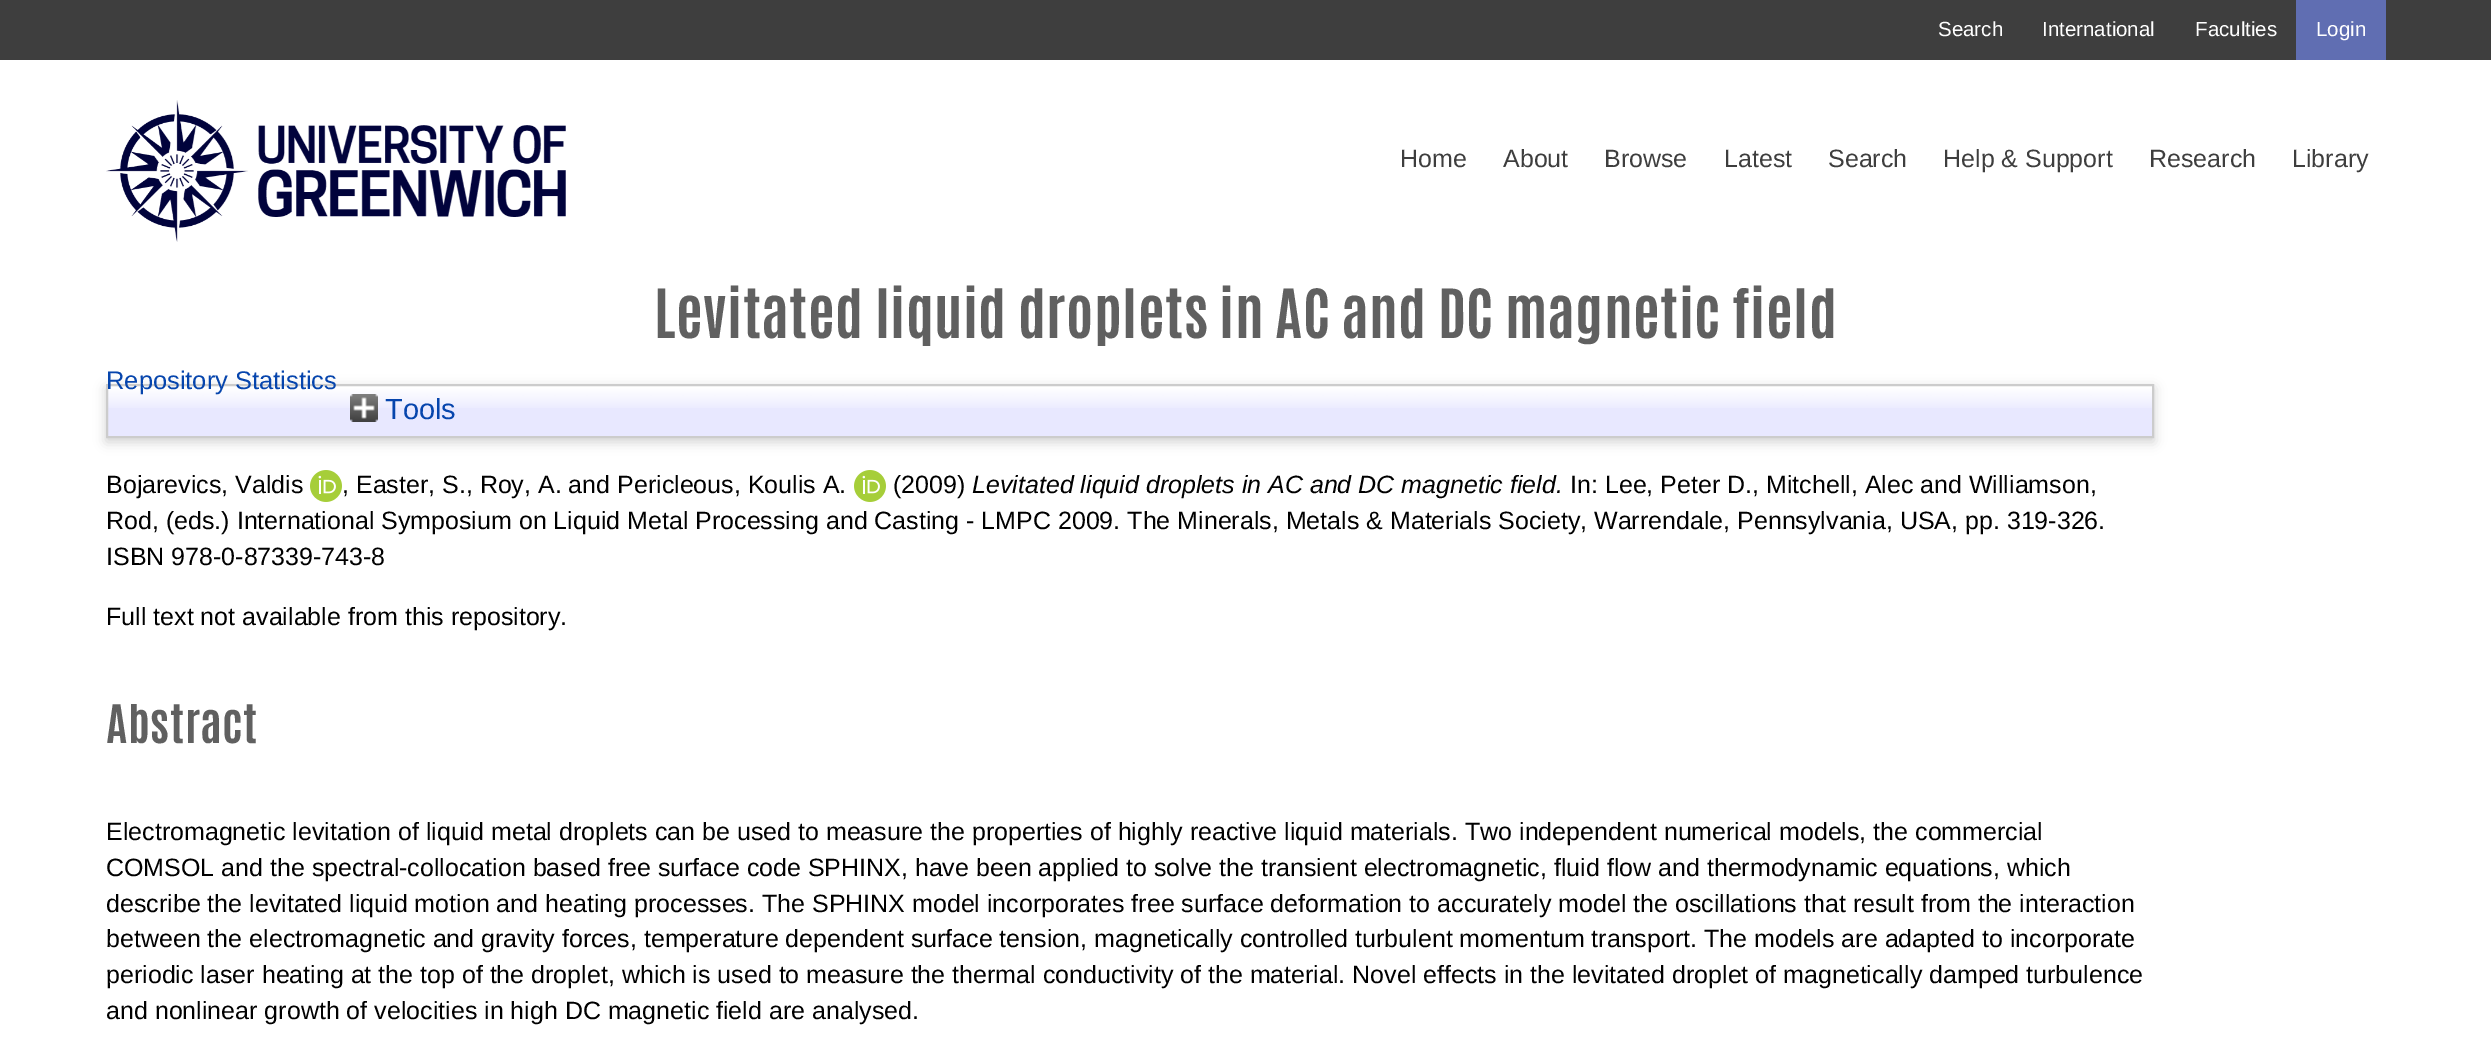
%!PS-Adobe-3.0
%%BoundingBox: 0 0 2491 1056
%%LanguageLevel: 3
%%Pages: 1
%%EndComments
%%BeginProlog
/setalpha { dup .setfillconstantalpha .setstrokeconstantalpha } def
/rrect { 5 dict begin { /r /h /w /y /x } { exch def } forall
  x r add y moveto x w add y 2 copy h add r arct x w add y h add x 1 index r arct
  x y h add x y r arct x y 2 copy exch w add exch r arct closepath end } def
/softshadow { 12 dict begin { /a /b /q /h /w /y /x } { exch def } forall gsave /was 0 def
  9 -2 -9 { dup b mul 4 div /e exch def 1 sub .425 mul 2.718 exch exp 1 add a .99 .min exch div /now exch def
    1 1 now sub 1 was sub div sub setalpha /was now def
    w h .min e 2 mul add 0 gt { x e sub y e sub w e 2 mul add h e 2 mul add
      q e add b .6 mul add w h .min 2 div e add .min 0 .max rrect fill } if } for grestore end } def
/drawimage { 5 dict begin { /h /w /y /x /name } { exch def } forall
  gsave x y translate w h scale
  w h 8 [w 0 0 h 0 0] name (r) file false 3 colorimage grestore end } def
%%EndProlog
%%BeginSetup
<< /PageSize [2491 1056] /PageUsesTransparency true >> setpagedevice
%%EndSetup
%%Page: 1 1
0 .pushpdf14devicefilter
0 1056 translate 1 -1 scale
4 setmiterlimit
1 setgray
0 0 2491 1056 rectfill
0.243 setgray
0 0 2491 60 rectfill
0.376 0.431 0.698 setrgbcolor
2296 0 90 60 rectfill
(images/1.raw) 106 100 460 142 drawimage
0.392 setgray
106 388 2048 54 0 6 0.3 softshadow
0.91 0.91 1 setrgbcolor
108 387 2044 49 rectfill
(images/2.raw) 108 386 2044 22 drawimage
0.8 setgray
2 setlinewidth
107 385 2046 52 rectstroke
(images/3.raw) 350 394 28 28 drawimage
(images/4.raw) 310 470 32 32 drawimage
(images/4.raw) 854 470 32 32 drawimage
/LiberationSans-Regular [20.5 0 0 -20.5 0 0] selectfont
1 setgray
1938 36 moveto (Search) show
2042 36 moveto (International) show
2195 36 moveto (Faculties) show
2316 36 moveto (Login) show
/LiberationSans-Regular [25 0 0 -25 0 0] selectfont
0.243 setgray
1400 167 moveto (Home) show
1503 167 moveto (About) show
1604 167 moveto (Browse) show
1724 167 moveto (Latest) show
1828 167 moveto (Search) show
1943 167 moveto (Help & Support) show
2149 167 moveto (Research) show
2292 167 moveto (Library) show
/Antonio-Bold [57.5 0 0 -57.5 0 0] selectfont
0.376 setgray
654 338 moveto 0.5 0 (Levitated liquid droplets in AC and DC magnetic field) ashow
/LiberationSans-Regular [25.5 0 0 -25.5 0 0] selectfont
0.024 0.271 0.678 setrgbcolor
106 389 moveto (Repository Statistics) show
/LiberationSans-Regular [29 0 0 -29 0 0] selectfont
385 419 moveto (Tools) show
/LiberationSans-Regular [25 0 0 -25 0 0] selectfont
0 setgray
106 493 moveto (Bojarevics, Valdis) show
342 493 moveto (, Easter, S., Roy, A. and Pericleous, Koulis A.) show
893 493 moveto (\(2009\)) show
/LiberationSans-Italic [25 0 0 -25 0 0] selectfont
972 493 moveto (Levitated liquid droplets in AC and DC magnetic field.) show
/LiberationSans-Regular [25 0 0 -25 0 0] selectfont
1570 493 moveto (In: Lee, Peter D., Mitchell, Alec and Williamson,) show
106 529 moveto (Rod, \(eds.\) International Symposium on Liquid Metal Processing and Casting - LMPC 2009. The Minerals, Metals & Materials Society, Warrendale, Pennsylvania, USA, pp. 319-326.) show
106 565 moveto (ISBN 978-0-87339-743-8) show
106 625 moveto (Full text not available from this repository.) show
/Antonio-Bold [45 0 0 -45 0 0] selectfont
0.376 setgray
106 743 moveto 0.5 0 (Abstract) ashow
/LiberationSans-Regular [25 0 0 -25 0 0] selectfont
0 setgray
106 840 moveto (Electromagnetic levitation of liquid metal droplets can be used to measure the properties of highly reactive liquid materials. Two independent numerical models, the commercial) show
106 876 moveto (COMSOL and the spectral-collocation based free surface code SPHINX, have been applied to solve the transient electromagnetic, fluid flow and thermodynamic equations, which) show
106 912 moveto (describe the levitated liquid motion and heating processes. The SPHINX model incorporates free surface deformation to accurately model the oscillations that result from the interaction) show
106 947 moveto (between the electromagnetic and gravity forces, temperature dependent surface tension, magnetically controlled turbulent momentum transport. The models are adapted to incorporate) show
106 983 moveto (periodic laser heating at the top of the droplet, which is used to measure the thermal conductivity of the material. Novel effects in the levitated droplet of magnetically damped turbulence) show
106 1019 moveto (and nonlinear growth of velocities in high DC magnetic field are analysed.) show
.poppdf14devicefilter showpage
%%EOF
